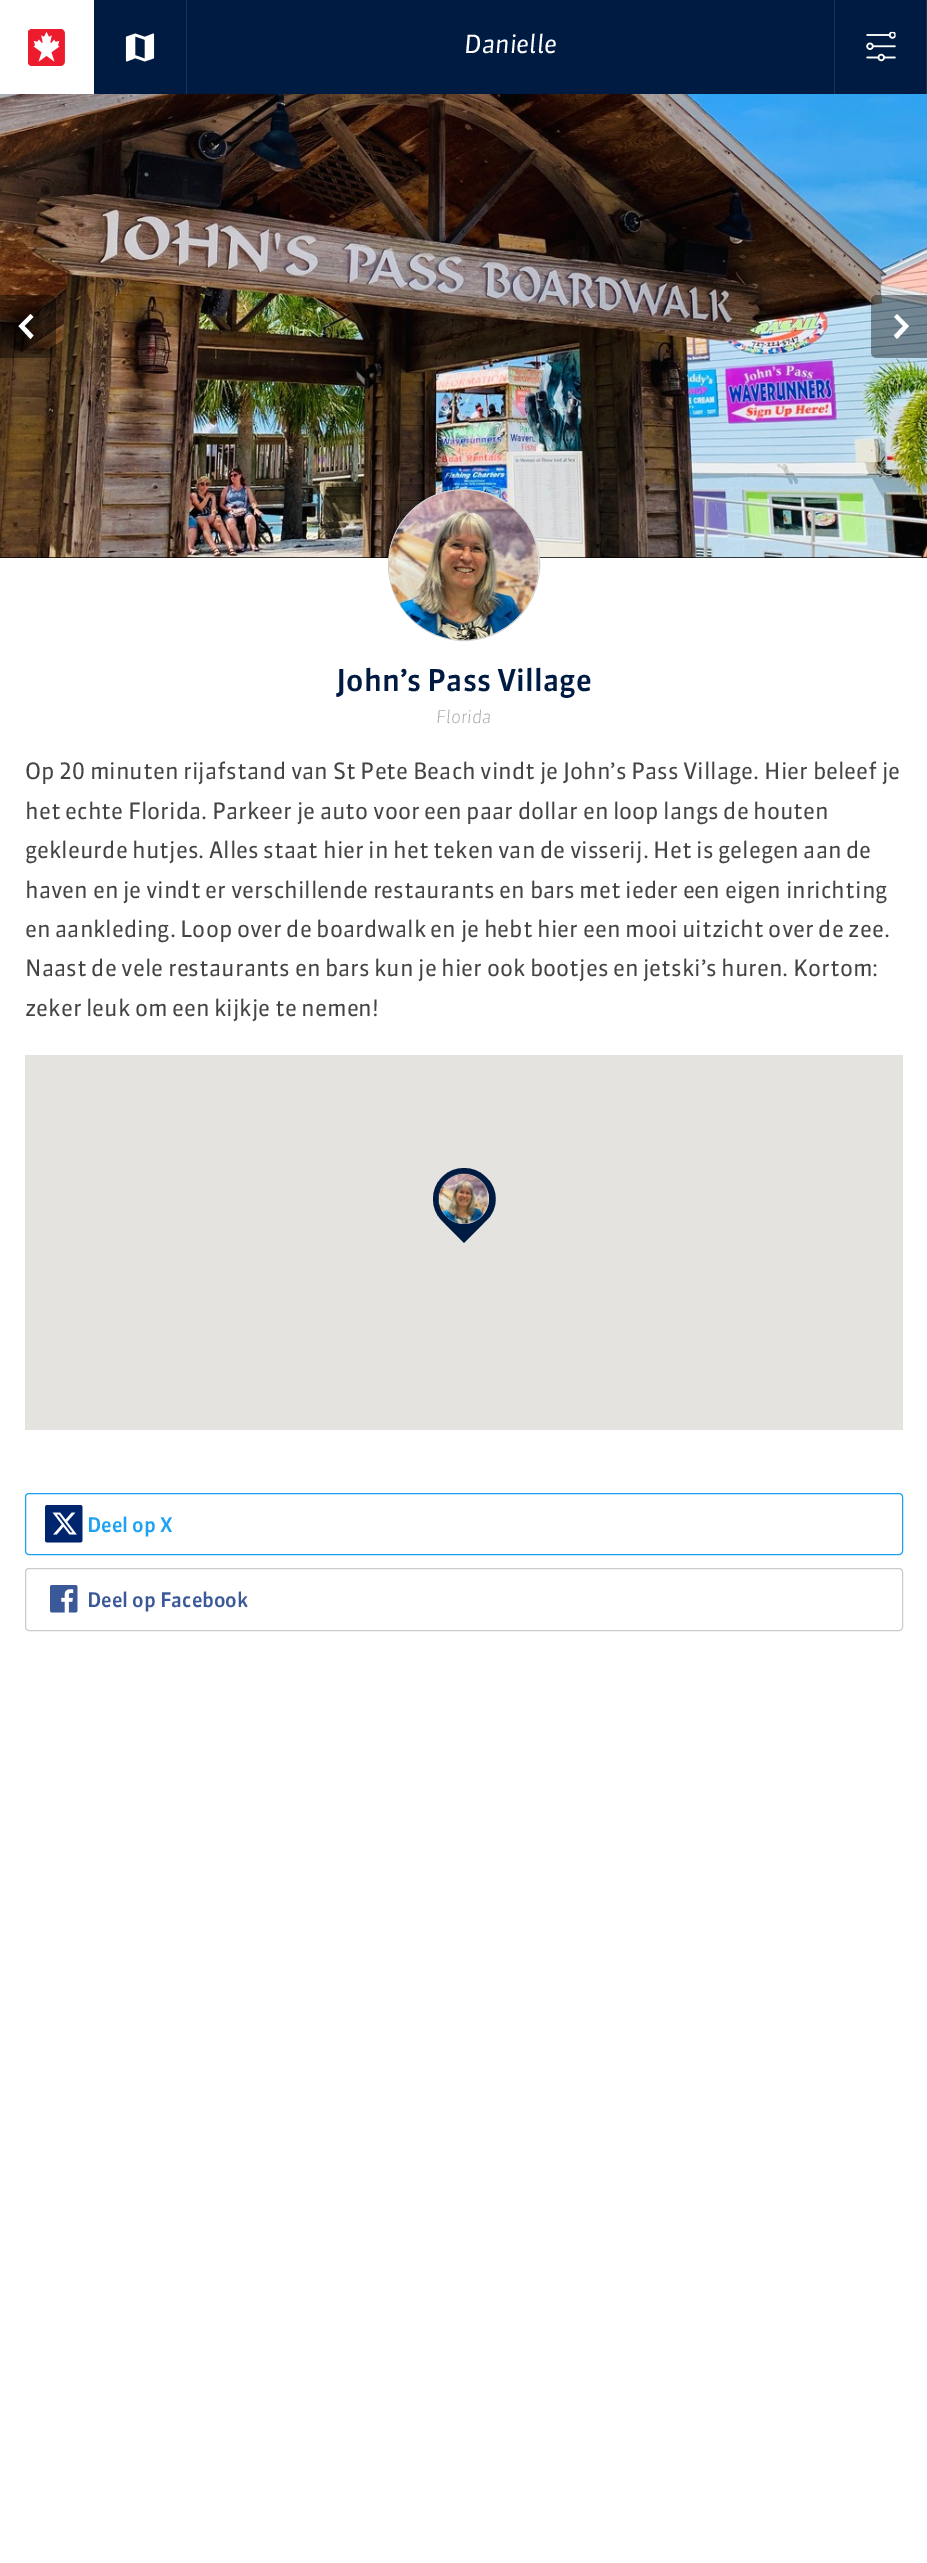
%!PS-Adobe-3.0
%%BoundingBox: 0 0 927 2563
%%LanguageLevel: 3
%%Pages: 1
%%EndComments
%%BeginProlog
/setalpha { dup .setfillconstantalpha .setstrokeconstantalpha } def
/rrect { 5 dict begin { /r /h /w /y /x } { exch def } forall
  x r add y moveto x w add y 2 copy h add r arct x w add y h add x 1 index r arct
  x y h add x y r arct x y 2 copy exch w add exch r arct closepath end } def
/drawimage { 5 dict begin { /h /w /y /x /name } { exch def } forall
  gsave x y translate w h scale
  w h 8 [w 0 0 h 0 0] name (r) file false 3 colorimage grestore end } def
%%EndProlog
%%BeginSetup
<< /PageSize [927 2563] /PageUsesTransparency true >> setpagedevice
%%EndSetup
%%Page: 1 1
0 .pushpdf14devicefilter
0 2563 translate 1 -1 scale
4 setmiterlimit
1 setgray
0 0 927 2563 rectfill
0 0.106 0.259 setrgbcolor
94 0 832 94 rectfill
(images/1.raw) 28 29 37 37 drawimage
0.102 0.196 0.333 setrgbcolor
186 0 1 94 rectfill
(images/2.raw) 125 33 30 29 drawimage
926 0 1 94 rectfill
834 0 1 94 rectfill
(images/3.raw) 866 31 30 31 drawimage
0 setgray
0 557 927 1 rectfill
(images/4.raw) 0 94 927 464 drawimage
0.4 setalpha
newpath 0 295 moveto 50 295 lineto 53.5 295 56 297.5 56 301 curveto 56 352 lineto 56 355.5 53.5 358 50 358 curveto 0 358 lineto closepath fill
1 setalpha
1 setgray
newpath 18.5 326 moveto 30.5 339 lineto 33.5 335.5 lineto 24.5 326 lineto 33.5 317 lineto 30.5 314 lineto closepath fill
0.4 setalpha
0 setgray
newpath 877 295 moveto 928 295 lineto 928 358 lineto 877 358 lineto 873.5 358 871 355.5 871 352 curveto 871 301 lineto 871 297.5 873.5 295 877 295 curveto closepath fill
1 setalpha
1 setgray
newpath 909 326 moveto 897 314 lineto 894 317 lineto 903 326 lineto 894 335.5 lineto 897 339 lineto closepath fill
newpath 464 565 75.5 0 360 arc closepath gsave fill grestore
0.8 setgray
stroke
(images/5.raw) 389 490 150 150 drawimage
0.898 0.89 0.875 setrgbcolor
25 1055 878 375 rectfill
0 0.106 0.259 setrgbcolor
newpath 442 1177 moveto 454 1165 474 1165 486 1177 curveto 499 1189 499 1209 486 1221 curveto 464 1243 lineto 442 1221 lineto 430 1209 430 1189 442 1177 curveto closepath fill
1 setgray
newpath 464 1199 25 0 360 arc closepath fill
(images/6.raw) 438 1173 51 51 drawimage
0.114 0.631 0.949 setrgbcolor
25.5 1493.5 877 61 3.5 rrect stroke
(images/7.raw) 45 1505 38 38 drawimage
0.8 setgray
25.5 1568.5 877 62 3.5 rrect stroke
(images/8.raw) 50 1585 28 28 drawimage
/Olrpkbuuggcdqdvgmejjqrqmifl-Italic [25 0 0 -25 0 0] selectfont
1 setgray
464 53 moveto (Danielle) show
/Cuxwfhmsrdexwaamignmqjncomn-Medium [30 0 0 -30 0 0] selectfont
0 0.106 0.259 setrgbcolor
336 691 moveto (John’s Pass Village) show
/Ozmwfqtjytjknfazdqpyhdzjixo-LightItalic [17.5 0 0 -17.5 0 0] selectfont
0.667 setgray
436 723 moveto (Florida) show
/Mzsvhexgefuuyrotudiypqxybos-Regular [22.5 0 0 -22.5 0 0] selectfont
0.267 setgray
25 779 moveto (Op 20 minuten rijafstand van St Pete Beach vindt je John’s Pass Village. Hier beleef je) show
25 819 moveto (het echte Florida. Parkeer je auto voor een paar dollar en loop langs de houten) show
25 858 moveto (gekleurde hutjes. Alles staat hier in het teken van de visserij. Het is gelegen aan de) show
25 898 moveto (haven en je vindt er verschillende restaurants en bars met ieder een eigen inrichting) show
25 937 moveto (en aankleding. Loop over de boardwalk en je hebt hier een mooi uitzicht over de zee.) show
25 976 moveto (Naast de vele restaurants en bars kun je hier ook bootjes en jetski’s huren. Kortom:) show
25 1016 moveto (zeker leuk om een kijkje te nemen!) show
/Cuxwfhmsrdexwaamignmqjncomn-Medium [20 0 0 -20 0 0] selectfont
0.114 0.631 0.949 setrgbcolor
87 1532 moveto (Deel op X) show
0.231 0.349 0.596 setrgbcolor
87 1607 moveto (Deel op Facebook) show
.poppdf14devicefilter showpage
%%EOF
